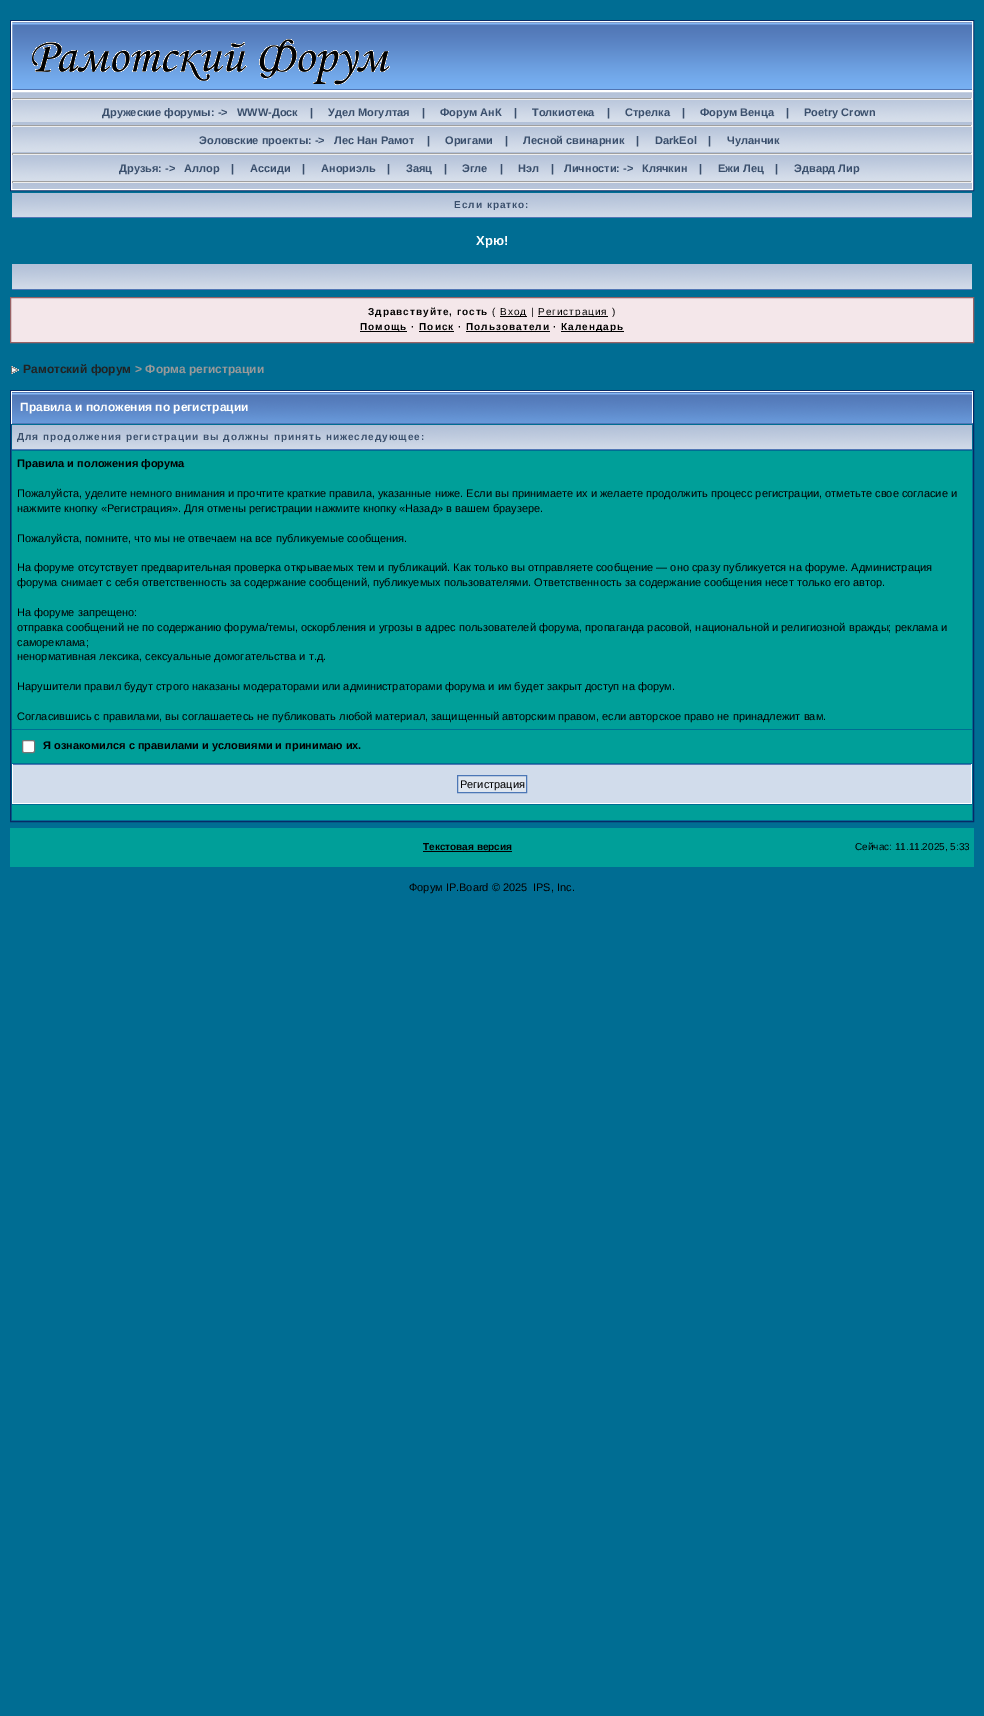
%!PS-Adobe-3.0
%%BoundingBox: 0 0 984 1716
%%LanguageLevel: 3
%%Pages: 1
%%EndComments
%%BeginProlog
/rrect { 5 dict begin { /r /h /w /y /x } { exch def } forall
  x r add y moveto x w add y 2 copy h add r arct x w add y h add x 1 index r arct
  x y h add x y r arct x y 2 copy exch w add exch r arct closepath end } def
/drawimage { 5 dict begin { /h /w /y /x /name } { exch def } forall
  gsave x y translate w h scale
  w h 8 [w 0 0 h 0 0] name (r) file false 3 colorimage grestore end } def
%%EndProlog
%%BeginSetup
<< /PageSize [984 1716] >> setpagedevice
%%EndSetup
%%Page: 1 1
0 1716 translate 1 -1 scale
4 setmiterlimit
0 0.427 0.576 setrgbcolor
0 0 984 1716 rectfill
0.027 0.165 0.4 setrgbcolor
10.5 20.5 963 170 rectstroke
(images/1.raw) 12 22 960 68 drawimage
1 setgray
11.5 21.5 961 69 rectstroke
(images/2.raw) 32 39 358 46 drawimage
(images/3.raw) 12 92 960 97 drawimage
11.5 91.5 961 98 rectstroke
0.624 setgray
12 98 960 1 rectfill
0.933 setgray
971 98 1 2 rectfill
12 99 960 1 rectfill
0.624 setgray
12 98 1 2 rectfill
12 125 960 1 rectfill
0.933 setgray
971 125 1 2 rectfill
12 126 960 1 rectfill
0.624 setgray
12 125 1 2 rectfill
12 153 960 1 rectfill
0.933 setgray
971 153 1 2 rectfill
12 154 960 1 rectfill
0.624 setgray
12 153 1 2 rectfill
12 181 960 1 rectfill
0.933 setgray
971 181 1 2 rectfill
12 182 960 1 rectfill
0.624 setgray
12 181 1 2 rectfill
(images/4.raw) 12 193 960 24 drawimage
0.318 0.463 0.71 setrgbcolor
12 217 960 1 rectfill
(images/5.raw) 12 264 960 25 drawimage
12 289 960 1 rectfill
0.957 0.906 0.918 setrgbcolor
newpath 10.5 297.5 moveto 973.5 297.5 lineto 973.5 342.5 lineto 10.5 342.5 lineto closepath gsave fill grestore
0.596 0.384 0.396 setrgbcolor
stroke
0 setgray
500 316 27 1 rectfill
538 316 70 1 rectfill
360 331 47 1 rectfill
419 331 35 1 rectfill
466 331 84 1 rectfill
561 331 63 1 rectfill
(images/6.raw) 11 366 8 8 drawimage
0.027 0.165 0.4 setrgbcolor
10.5 390.5 963 431 rectstroke
(images/7.raw) 12 392 960 31 drawimage
1 setgray
11 391 962 1 rectfill
972 391 1 33 rectfill
0.318 0.463 0.71 setrgbcolor
11 423 962 1 rectfill
1 setgray
11 391 1 33 rectfill
(images/4.raw) 12 425 960 24 drawimage
0.318 0.463 0.71 setrgbcolor
12 449 960 1 rectfill
0 0.624 0.6 setrgbcolor
12 451 960 278 rectfill
12 730 960 33 rectfill
1 setgray
22.5 740.5 12 12 1.5 rrect gsave fill grestore
0.463 setgray
stroke
0.82 0.863 0.922 setrgbcolor
13 765 958 38 rectfill
0.318 0.463 0.71 setrgbcolor
12 764 960 1 rectfill
1 setgray
971 764 1 40 rectfill
12 803 960 1 rectfill
12 764 1 40 rectfill
0.875 0.902 0.937 setrgbcolor
newpath 457.5 775.5 moveto 526.5 775.5 lineto 526.5 792.5 lineto 457.5 792.5 lineto closepath gsave fill grestore
0.298 0.467 0.714 setrgbcolor
stroke
0 0.624 0.6 setrgbcolor
12 805 960 15 rectfill
10 828 964 39 rectfill
0 setgray
423 851 89 1 rectfill
/LiberationSans-Bold [11 0 0 -11 0 0] selectfont
0.227 0.31 0.424 setrgbcolor
102 116 moveto (Дружеские форумы: ->) show
237 116 moveto (WWW-Доск) show
310 116 moveto (|) show
328 116 moveto (Удел Могултая) show
422 116 moveto (|) show
440 116 moveto (Форум АнК) show
514 116 moveto (|) show
532 116 moveto (Толкиотека) show
607 116 moveto (|) show
625 116 moveto (Стрелка) show
682 116 moveto (|) show
700 116 moveto (Форум Венца) show
786 116 moveto (|) show
804 116 moveto (Poetry Crown) show
199 144 moveto (Эоловские проекты: ->) show
334 144 moveto (Лес Нан Рамот) show
427 144 moveto (|) show
445 144 moveto (Оригами) show
505 144 moveto (|) show
523 144 moveto (Лесной свинарник) show
636 144 moveto (|) show
655 144 moveto (DarkEol) show
708 144 moveto (|) show
727 144 moveto (Чуланчик) show
119 172 moveto (Друзья: ->) show
184 172 moveto (Аллор) show
231 172 moveto (|) show
250 172 moveto (Ассиди) show
302 172 moveto (|) show
321 172 moveto (Анориэль) show
387 172 moveto (|) show
406 172 moveto (Заяц) show
444 172 moveto (|) show
462 172 moveto (Эгле) show
500 172 moveto (|) show
518 172 moveto (Нэл) show
551 172 moveto (|) show
564 172 moveto (Личности: ->) show
642 172 moveto (Клячкин) show
699 172 moveto (|) show
718 172 moveto (Ежи Лец) show
775 172 moveto (|) show
794 172 moveto (Эдвард Лир) show
/LiberationSans-Bold [10 0 0 -10 0 0] selectfont
454 208 moveto 1 0 (Если кратко:) ashow
/LiberationSans-Bold [13 0 0 -13 0 0] selectfont
1 setgray
476 245 moveto (Хрю!) show
/LiberationSans-Bold [10 0 0 -10 0 0] selectfont
0 setgray
368 315 moveto 1 0 (Здравствуйте, гость) ashow
/LiberationSans-Regular [10 0 0 -10 0 0] selectfont
492 315 moveto 1 0 (\() ashow
500 315 moveto 1 0 (Вход |) ashow
538 315 moveto 1 0 (Регистрация \)) ashow
/LiberationSans-Bold [10 0 0 -10 0 0] selectfont
360 330 moveto 1 0 (Помощь · Поиск · Пользователи ·) ashow
561 330 moveto 1 0 (Календарь) ashow
/LiberationSans-Bold [12 0 0 -12 0 0] selectfont
0.133 setgray
23 373 moveto (Рамотский форум) show
0.6 setgray
135 373 moveto (> Форма регистрации) show
1 setgray
20 411 moveto (Правила и положения по регистрации) show
/LiberationSans-Bold [10 0 0 -10 0 0] selectfont
0.227 0.31 0.424 setrgbcolor
17 440 moveto 1 0 (Для продолжения регистрации вы должны принять нижеследующее:) ashow
/LiberationSans-Bold [11 0 0 -11 0 0] selectfont
0 setgray
17 467 moveto (Правила и положения форума) show
/LiberationSans-Regular [11 0 0 -11 0 0] selectfont
17 497 moveto (Пожалуйста, уделите немного внимания и прочтите краткие правила, указанные ниже. Если вы принимаете их и желаете продолжить процесс регистрации, отметьте свое согласие и) show
17 512 moveto (нажмите кнопку «Регистрация». Для отмены регистрации нажмите кнопку «Назад» в вашем браузере.) show
17 542 moveto (Пожалуйста, помните, что мы не отвечаем на все публикуемые сообщения.) show
17 571 moveto (На форуме отсутствует предварительная проверка открываемых тем и публикаций. Как только вы отправляете сообщение — оно сразу публикуется на форуме. Администрация) show
17 586 moveto (форума снимает с себя ответственность за содержание сообщений, публикуемых пользователями. Ответственность за содержание сообщения несет только его автор.) show
17 616 moveto (На форуме запрещено:) show
17 631 moveto (отправка сообщений не по содержанию форума/темы, оскорбления и угрозы в адрес пользователей форума, пропаганда расовой, национальной и религиозной вражды; реклама и) show
17 646 moveto (самореклама;) show
17 660 moveto (ненормативная лексика, сексуальные домогательства и т.д.) show
17 690 moveto (Нарушители правил будут строго наказаны модераторами или администраторами форума и им будет закрыт доступ на форум.) show
17 720 moveto (Согласившись с правилами, вы соглашаетесь не публиковать любой материал, защищенный авторским правом, если авторское право не принадлежит вам.) show
/LiberationSans-Bold [11 0 0 -11 0 0] selectfont
43 749 moveto (Я ознакомился с правилами и условиями и принимаю их.) show
/LiberationSans-Regular [11 0 0 -11 0 0] selectfont
460 788 moveto (Регистрация) show
/LiberationSans-Bold [10 0 0 -10 0 0] selectfont
423 850 moveto (Текстовая версия) show
/LiberationSans-Regular [10 0 0 -10 0 0] selectfont
855 850 moveto (Сейчас: 11.11.2025, 5:33) show
/LiberationSans-Regular [11 0 0 -11 0 0] selectfont
409 891 moveto (Форум IP.Board © 2025) show
533 891 moveto (IPS, Inc.) show
showpage
%%EOF
